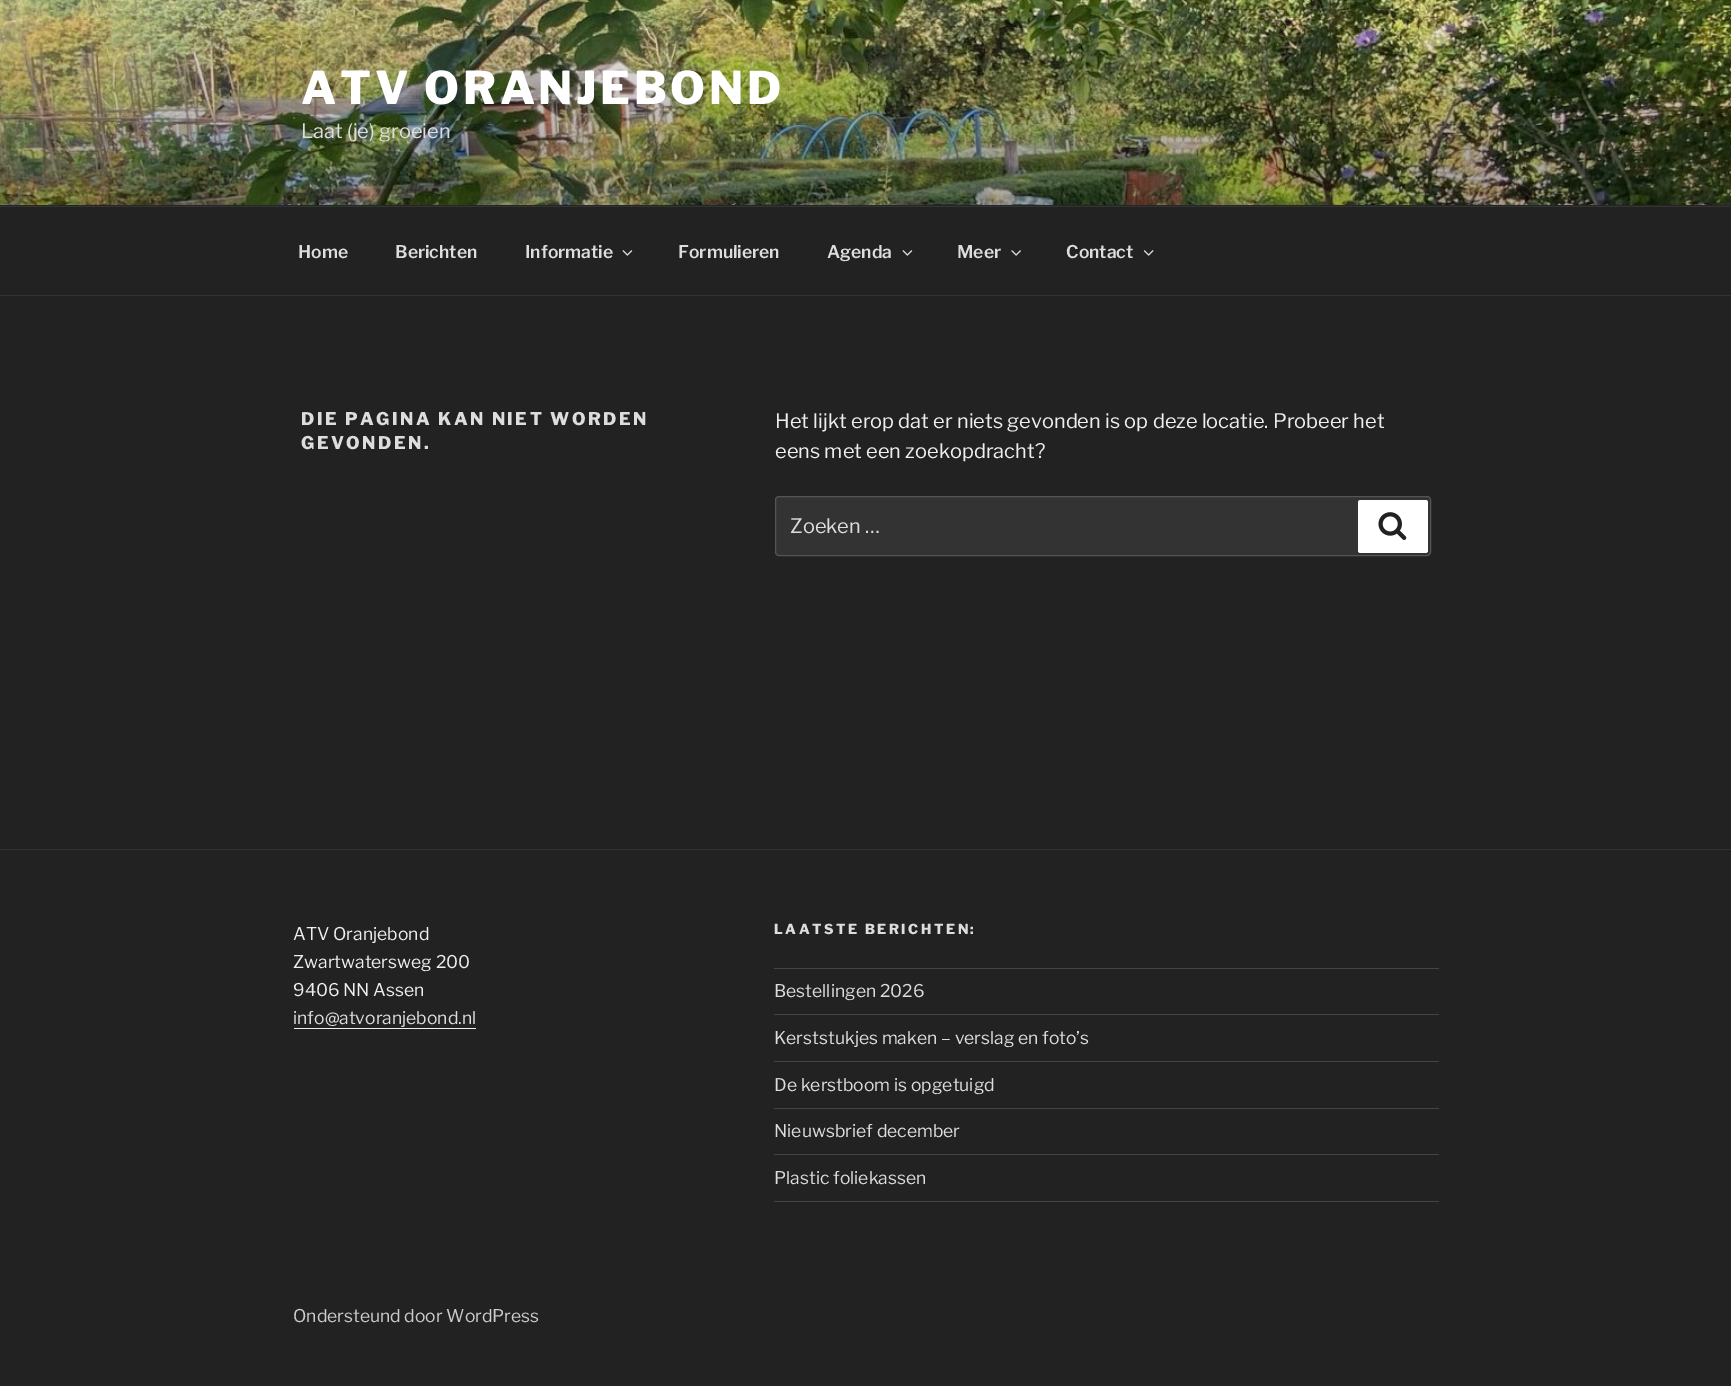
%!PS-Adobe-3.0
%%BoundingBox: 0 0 1731 1386
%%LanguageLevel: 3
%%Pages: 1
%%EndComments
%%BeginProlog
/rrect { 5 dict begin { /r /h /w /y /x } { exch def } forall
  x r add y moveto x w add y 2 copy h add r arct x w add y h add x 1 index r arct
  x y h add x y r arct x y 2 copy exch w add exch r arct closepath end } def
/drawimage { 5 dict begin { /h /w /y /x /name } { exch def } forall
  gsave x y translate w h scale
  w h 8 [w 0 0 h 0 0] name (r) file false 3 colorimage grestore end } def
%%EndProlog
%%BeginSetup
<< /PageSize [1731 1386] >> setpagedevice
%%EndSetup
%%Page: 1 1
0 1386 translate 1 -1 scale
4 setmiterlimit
0.133 setgray
0 0 1731 1386 rectfill
0.149 setgray
0 205 1731 1 rectfill
(images/1.raw) 0 0 1731 205 drawimage
0.2 setgray
0 206 1731 1 rectfill
0 295 1731 1 rectfill
(images/2.raw) 622 250 11 6 drawimage
(images/2.raw) 902 250 11 6 drawimage
(images/3.raw) 1011 250 10 6 drawimage
(images/4.raw) 1143 250 11 6 drawimage
775.5 496.5 655 59 3.5 rrect gsave fill grestore
0.333 setgray
stroke
1 setgray
1358 500 70 53 2.5 rrect fill
(images/5.raw) 1378 512 29 28 drawimage
0.2 setgray
0 849 1731 1 rectfill
0.941 setgray
294 1028 182 1 rectfill
0.267 setgray
774 968 665 1 rectfill
774 1014 665 1 rectfill
774 1061 665 1 rectfill
774 1108 665 1 rectfill
774 1154 665 1 rectfill
774 1201 665 1 rectfill
/LibreFranklin-Thin [45 0 0 -45 0 0] selectfont
1 setgray
301 104 moveto 3.6 0 (ATV ORANJEBOND) ashow
/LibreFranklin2-Thin [20 0 0 -20 0 0] selectfont
0.867 setgray
301 138 moveto (Laat \(je\) groeien) show
/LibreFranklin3-Thin [17.5 0 0 -17.5 0 0] selectfont
298 258 moveto (Home) show
395 258 moveto (Berichten) show
525 258 moveto (Informatie) show
678 258 moveto (Formulieren) show
827 258 moveto (Agenda) show
957 258 moveto (Meer) show
1066 258 moveto (Contact) show
/LibreFranklin-Thin [17.5 0 0 -17.5 0 0] selectfont
301 425 moveto 2.45 0 (DIE PAGINA KAN NIET WORDEN) ashow
301 449 moveto 2.45 0 (GEVONDEN.) ashow
/LibreFranklin2-Thin [20 0 0 -20 0 0] selectfont
0.933 setgray
775 428 moveto (Het lijkt erop dat er niets gevonden is op deze locatie. Probeer het) show
775 458 moveto (eens met een zoekopdracht?) show
0.867 setgray
790 533 moveto (Zoeken …) show
/LibreFranklin2-Thin [17.5 0 0 -17.5 0 0] selectfont
0.933 setgray
293 940 moveto (ATV Oranjebond) show
293 968 moveto (Zwartwatersweg 200) show
293 996 moveto (9406 NN Assen) show
0.867 setgray
293 1024 moveto (info@atvoranjebond.nl) show
/LibreFranklin-Thin [13.75 0 0 -13.75 0 0] selectfont
774 934 moveto 2.5 0 (LAATSTE BERICHTEN:) ashow
/LibreFranklin2-Thin [17.5 0 0 -17.5 0 0] selectfont
774 997 moveto (Bestellingen 2026) show
774 1044 moveto (Kerststukjes maken – verslag en foto’s) show
774 1091 moveto (De kerstboom is opgetuigd) show
774 1137 moveto (Nieuwsbrief december) show
774 1184 moveto (Plastic foliekassen) show
0.8 setgray
293 1322 moveto (Ondersteund door WordPress) show
showpage
%%EOF
